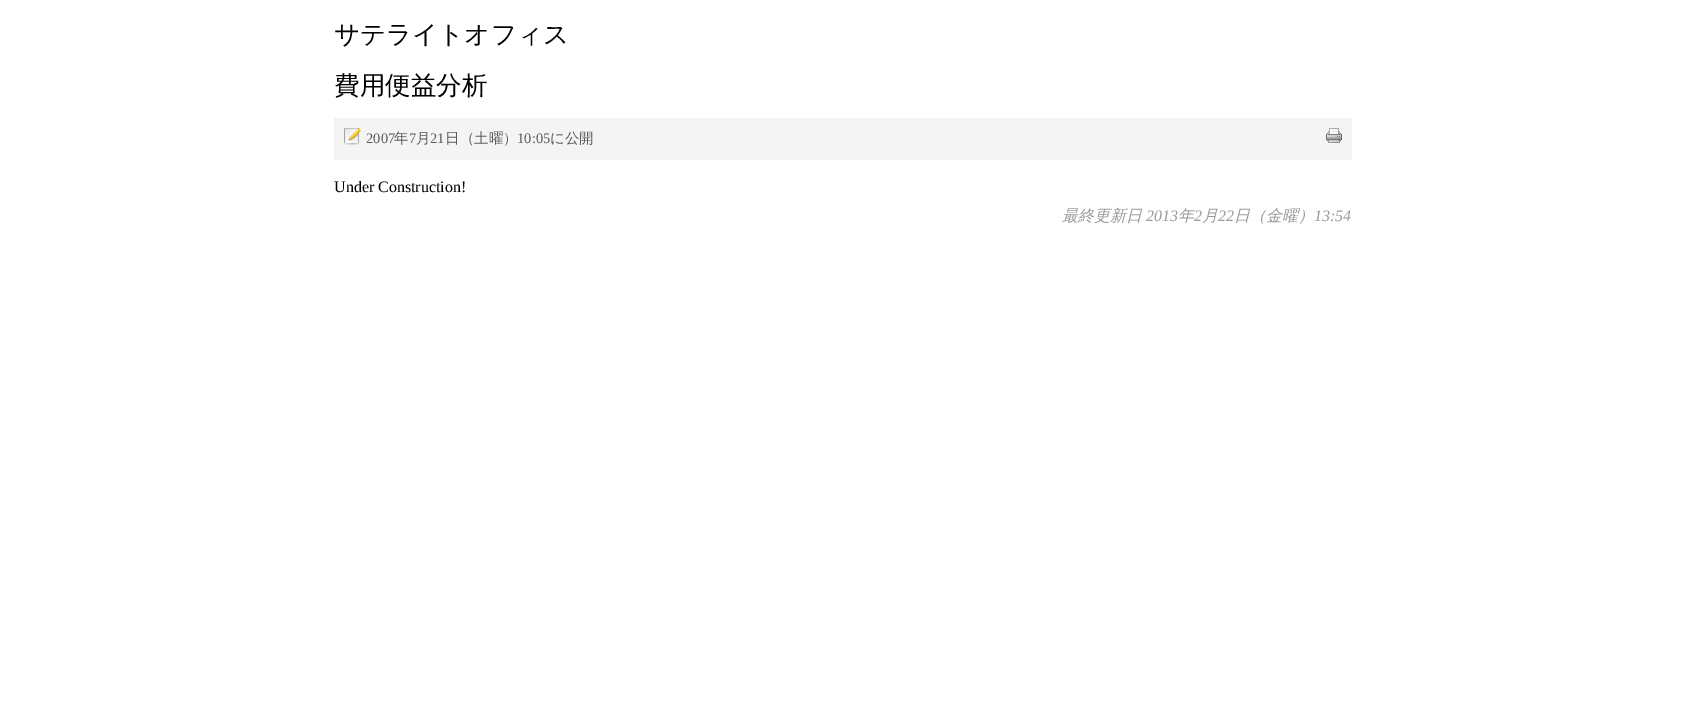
%!PS-Adobe-3.0
%%BoundingBox: 0 0 1685 704
%%LanguageLevel: 3
%%Pages: 1
%%EndComments
%%BeginProlog
/drawimage { 5 dict begin { /h /w /y /x /name } { exch def } forall
  gsave x y translate w h scale
  w h 8 [w 0 0 h 0 0] name (r) file false 3 colorimage grestore end } def
%%EndProlog
%%BeginSetup
<< /PageSize [1685 704] >> setpagedevice
%%EndSetup
%%Page: 1 1
0 704 translate 1 -1 scale
4 setmiterlimit
1 setgray
0 0 1685 704 rectfill
0.957 setgray
334 118 1018 42 rectfill
(images/1.raw) 344 128 17 17 drawimage
(images/2.raw) 1326 128 16 15 drawimage
/WenQuanYiZenHei-Medium [25.5 0 0 -25.5 0 0] selectfont
0 setgray
334 43 moveto (サテライトオフィス) show
334 94 moveto (費用便益分析) show
/LiberationSerif-Regular [14.5 0 0 -14.5 0 0] selectfont
0.349 setgray
366 143 moveto (2007) show
/WenQuanYiZenHei-Medium [14.5 0 0 -14.5 0 0] selectfont
394 143 moveto (年) show
/LiberationSerif-Regular [14.5 0 0 -14.5 0 0] selectfont
409 143 moveto (7) show
/WenQuanYiZenHei-Medium [14.5 0 0 -14.5 0 0] selectfont
416 143 moveto (月) show
/LiberationSerif-Regular [14.5 0 0 -14.5 0 0] selectfont
430 143 moveto (21) show
/WenQuanYiZenHei-Medium [14.5 0 0 -14.5 0 0] selectfont
445 143 moveto (日（土曜）) show
/LiberationSerif-Regular [14.5 0 0 -14.5 0 0] selectfont
517 143 moveto (10:05) show
/WenQuanYiZenHei-Medium [14.5 0 0 -14.5 0 0] selectfont
550 143 moveto (に公開) show
/LiberationSerif-Regular [16 0 0 -16 0 0] selectfont
0 setgray
334 192 moveto (Under Construction!) show
/WenQuanYiZenHei-MediumItalic [16 0 0 -16 0 0] selectfont
0.6 setgray
1062 221 moveto (最終更新日) show
/LiberationSerif-Italic [16 0 0 -16 0 0] selectfont
1146 221 moveto (2013) show
/WenQuanYiZenHei-MediumItalic [16 0 0 -16 0 0] selectfont
1178 221 moveto (年) show
/LiberationSerif-Italic [16 0 0 -16 0 0] selectfont
1194 221 moveto (2) show
/WenQuanYiZenHei-MediumItalic [16 0 0 -16 0 0] selectfont
1202 221 moveto (月) show
/LiberationSerif-Italic [16 0 0 -16 0 0] selectfont
1218 221 moveto (22) show
/WenQuanYiZenHei-MediumItalic [16 0 0 -16 0 0] selectfont
1234 221 moveto (日（金曜）) show
/LiberationSerif-Italic [16 0 0 -16 0 0] selectfont
1314 221 moveto (13:54) show
showpage
%%EOF
